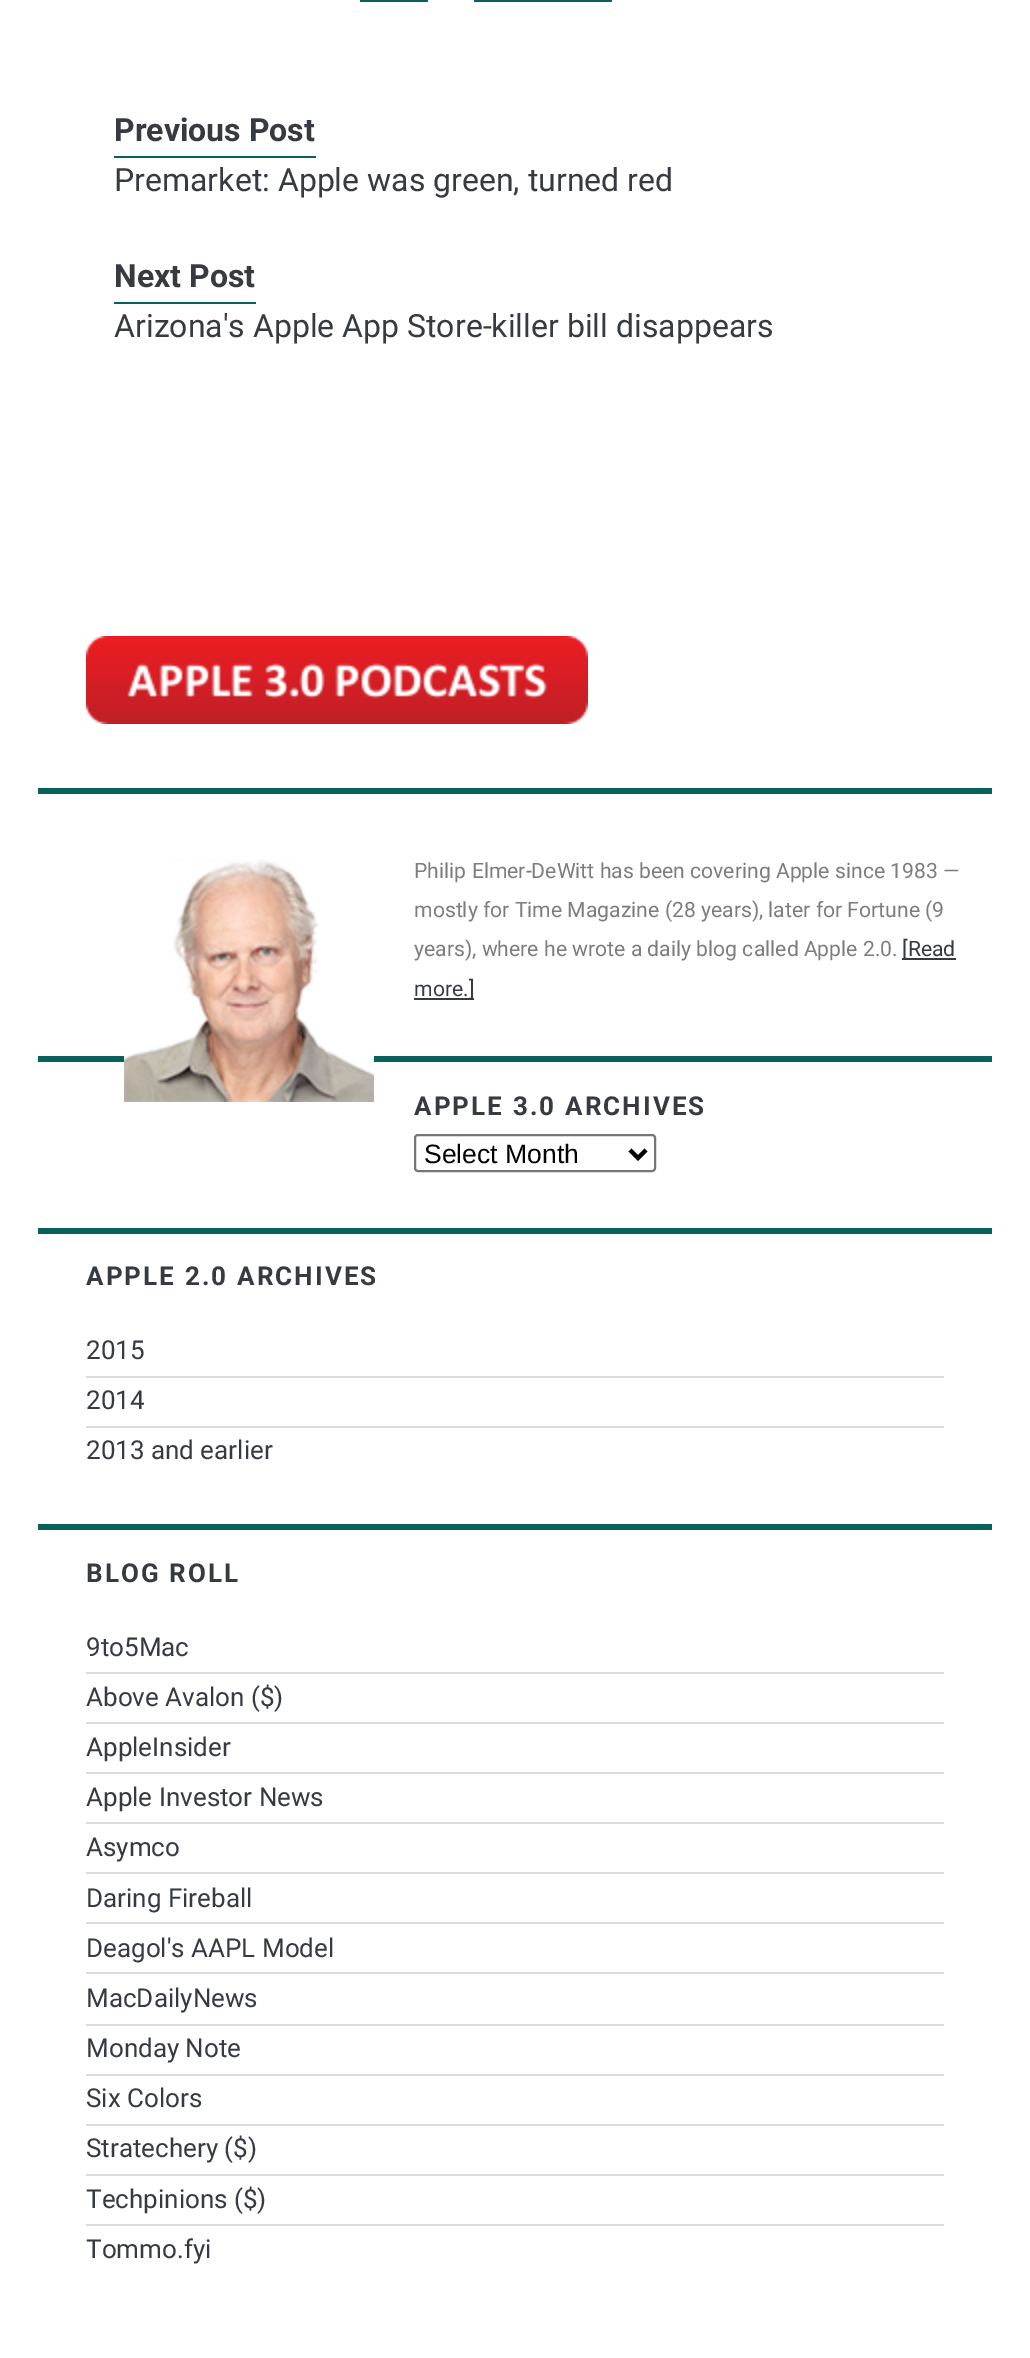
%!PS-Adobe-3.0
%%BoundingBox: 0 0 1030 2358
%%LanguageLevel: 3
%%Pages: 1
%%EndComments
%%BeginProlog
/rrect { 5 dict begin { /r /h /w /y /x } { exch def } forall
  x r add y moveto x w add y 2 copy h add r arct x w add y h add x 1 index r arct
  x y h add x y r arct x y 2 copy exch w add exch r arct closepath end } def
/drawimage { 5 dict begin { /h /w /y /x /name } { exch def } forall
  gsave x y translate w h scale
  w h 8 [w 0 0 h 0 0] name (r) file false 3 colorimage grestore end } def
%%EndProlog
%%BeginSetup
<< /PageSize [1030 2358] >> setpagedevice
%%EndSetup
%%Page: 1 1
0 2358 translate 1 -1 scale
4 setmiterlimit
1 setgray
0 0 1030 2358 rectfill
0.031 0.38 0.353 setrgbcolor
360 0 68 2 rectfill
474 0 138 2 rectfill
114 156 202 2 rectfill
114 302 142 2 rectfill
(images/1.raw) 86 636 502 88 drawimage
38 788 954 6 rectfill
38 1056 954 6 rectfill
(images/2.raw) 124 859 250 243 drawimage
0.216 0.231 0.255 setrgbcolor
902 958 54 2 rectfill
414 998 60 2 rectfill
0.463 setgray
2 setlinewidth
415 1135 240 36 3 rrect stroke
0 setgray
4 setlinewidth
newpath 630 1150 moveto 638 1158 lineto 646 1150 lineto stroke
0.031 0.38 0.353 setrgbcolor
38 1228 954 6 rectfill
0.851 0.863 0.875 setrgbcolor
86 1376 858 2 rectfill
86 1426 858 2 rectfill
0.031 0.38 0.353 setrgbcolor
38 1524 954 6 rectfill
0.851 0.863 0.875 setrgbcolor
86 1672 858 2 rectfill
86 1722 858 2 rectfill
86 1772 858 2 rectfill
86 1822 858 2 rectfill
86 1872 858 2 rectfill
86 1922 858 2 rectfill
86 1972 858 2 rectfill
86 2024 858 2 rectfill
86 2074 858 2 rectfill
86 2124 858 2 rectfill
86 2174 858 2 rectfill
86 2224 858 2 rectfill
/Roboto-Bold [32 0 0 -32 0 0] selectfont
0.216 0.231 0.255 setrgbcolor
114 141 moveto (Previous Post) show
/Roboto-Regular [32 0 0 -32 0 0] selectfont
114 191 moveto (Premarket: Apple was green, turned red) show
/Roboto-Bold [32 0 0 -32 0 0] selectfont
114 287 moveto (Next Post) show
/Roboto-Regular [32 0 0 -32 0 0] selectfont
114 337 moveto (Arizona's Apple App Store-killer bill disappears) show
/Roboto-Regular [21.15 0 0 -21.15 0 0] selectfont
0.486 0.49 0.498 setrgbcolor
414 878 moveto (Philip Elmer-DeWitt has been covering Apple since 1983 —) show
414 917 moveto (mostly for Time Magazine \(28 years\), later for Fortune \(9) show
414 956 moveto (years\), where he wrote a daily blog called Apple 2.0.) show
0.216 0.231 0.255 setrgbcolor
902 956 moveto ([Read) show
414 996 moveto (more.]) show
/Roboto-Bold [26 0 0 -26 0 0] selectfont
414 1115 moveto 2.1 0 (APPLE 3.0 ARCHIVES) ashow
/LiberationSans-Regular [26.5 0 0 -26.5 0 0] selectfont
0 setgray
424 1163 moveto (Select Month) show
/Roboto-Bold [26 0 0 -26 0 0] selectfont
0.216 0.231 0.255 setrgbcolor
86 1285 moveto 2.1 0 (APPLE 2.0 ARCHIVES) ashow
/Roboto-Regular [26 0 0 -26 0 0] selectfont
86 1359 moveto (2015) show
86 1409 moveto (2014) show
86 1459 moveto (2013 and earlier) show
/Roboto-Bold [26 0 0 -26 0 0] selectfont
86 1582 moveto 2.1 0 (BLOG ROLL) ashow
/Roboto-Regular [26 0 0 -26 0 0] selectfont
86 1656 moveto (9to5Mac) show
86 1706 moveto (Above Avalon \($\)) show
86 1756 moveto (AppleInsider) show
86 1806 moveto (Apple Investor News) show
86 1856 moveto (Asymco) show
86 1907 moveto (Daring Fireball) show
86 1957 moveto (Deagol's AAPL Model) show
86 2007 moveto (MacDailyNews) show
86 2057 moveto (Monday Note) show
86 2107 moveto (Six Colors) show
86 2157 moveto (Stratechery \($\)) show
86 2208 moveto (Techpinions \($\)) show
86 2258 moveto (Tommo.fyi) show
showpage
%%EOF
